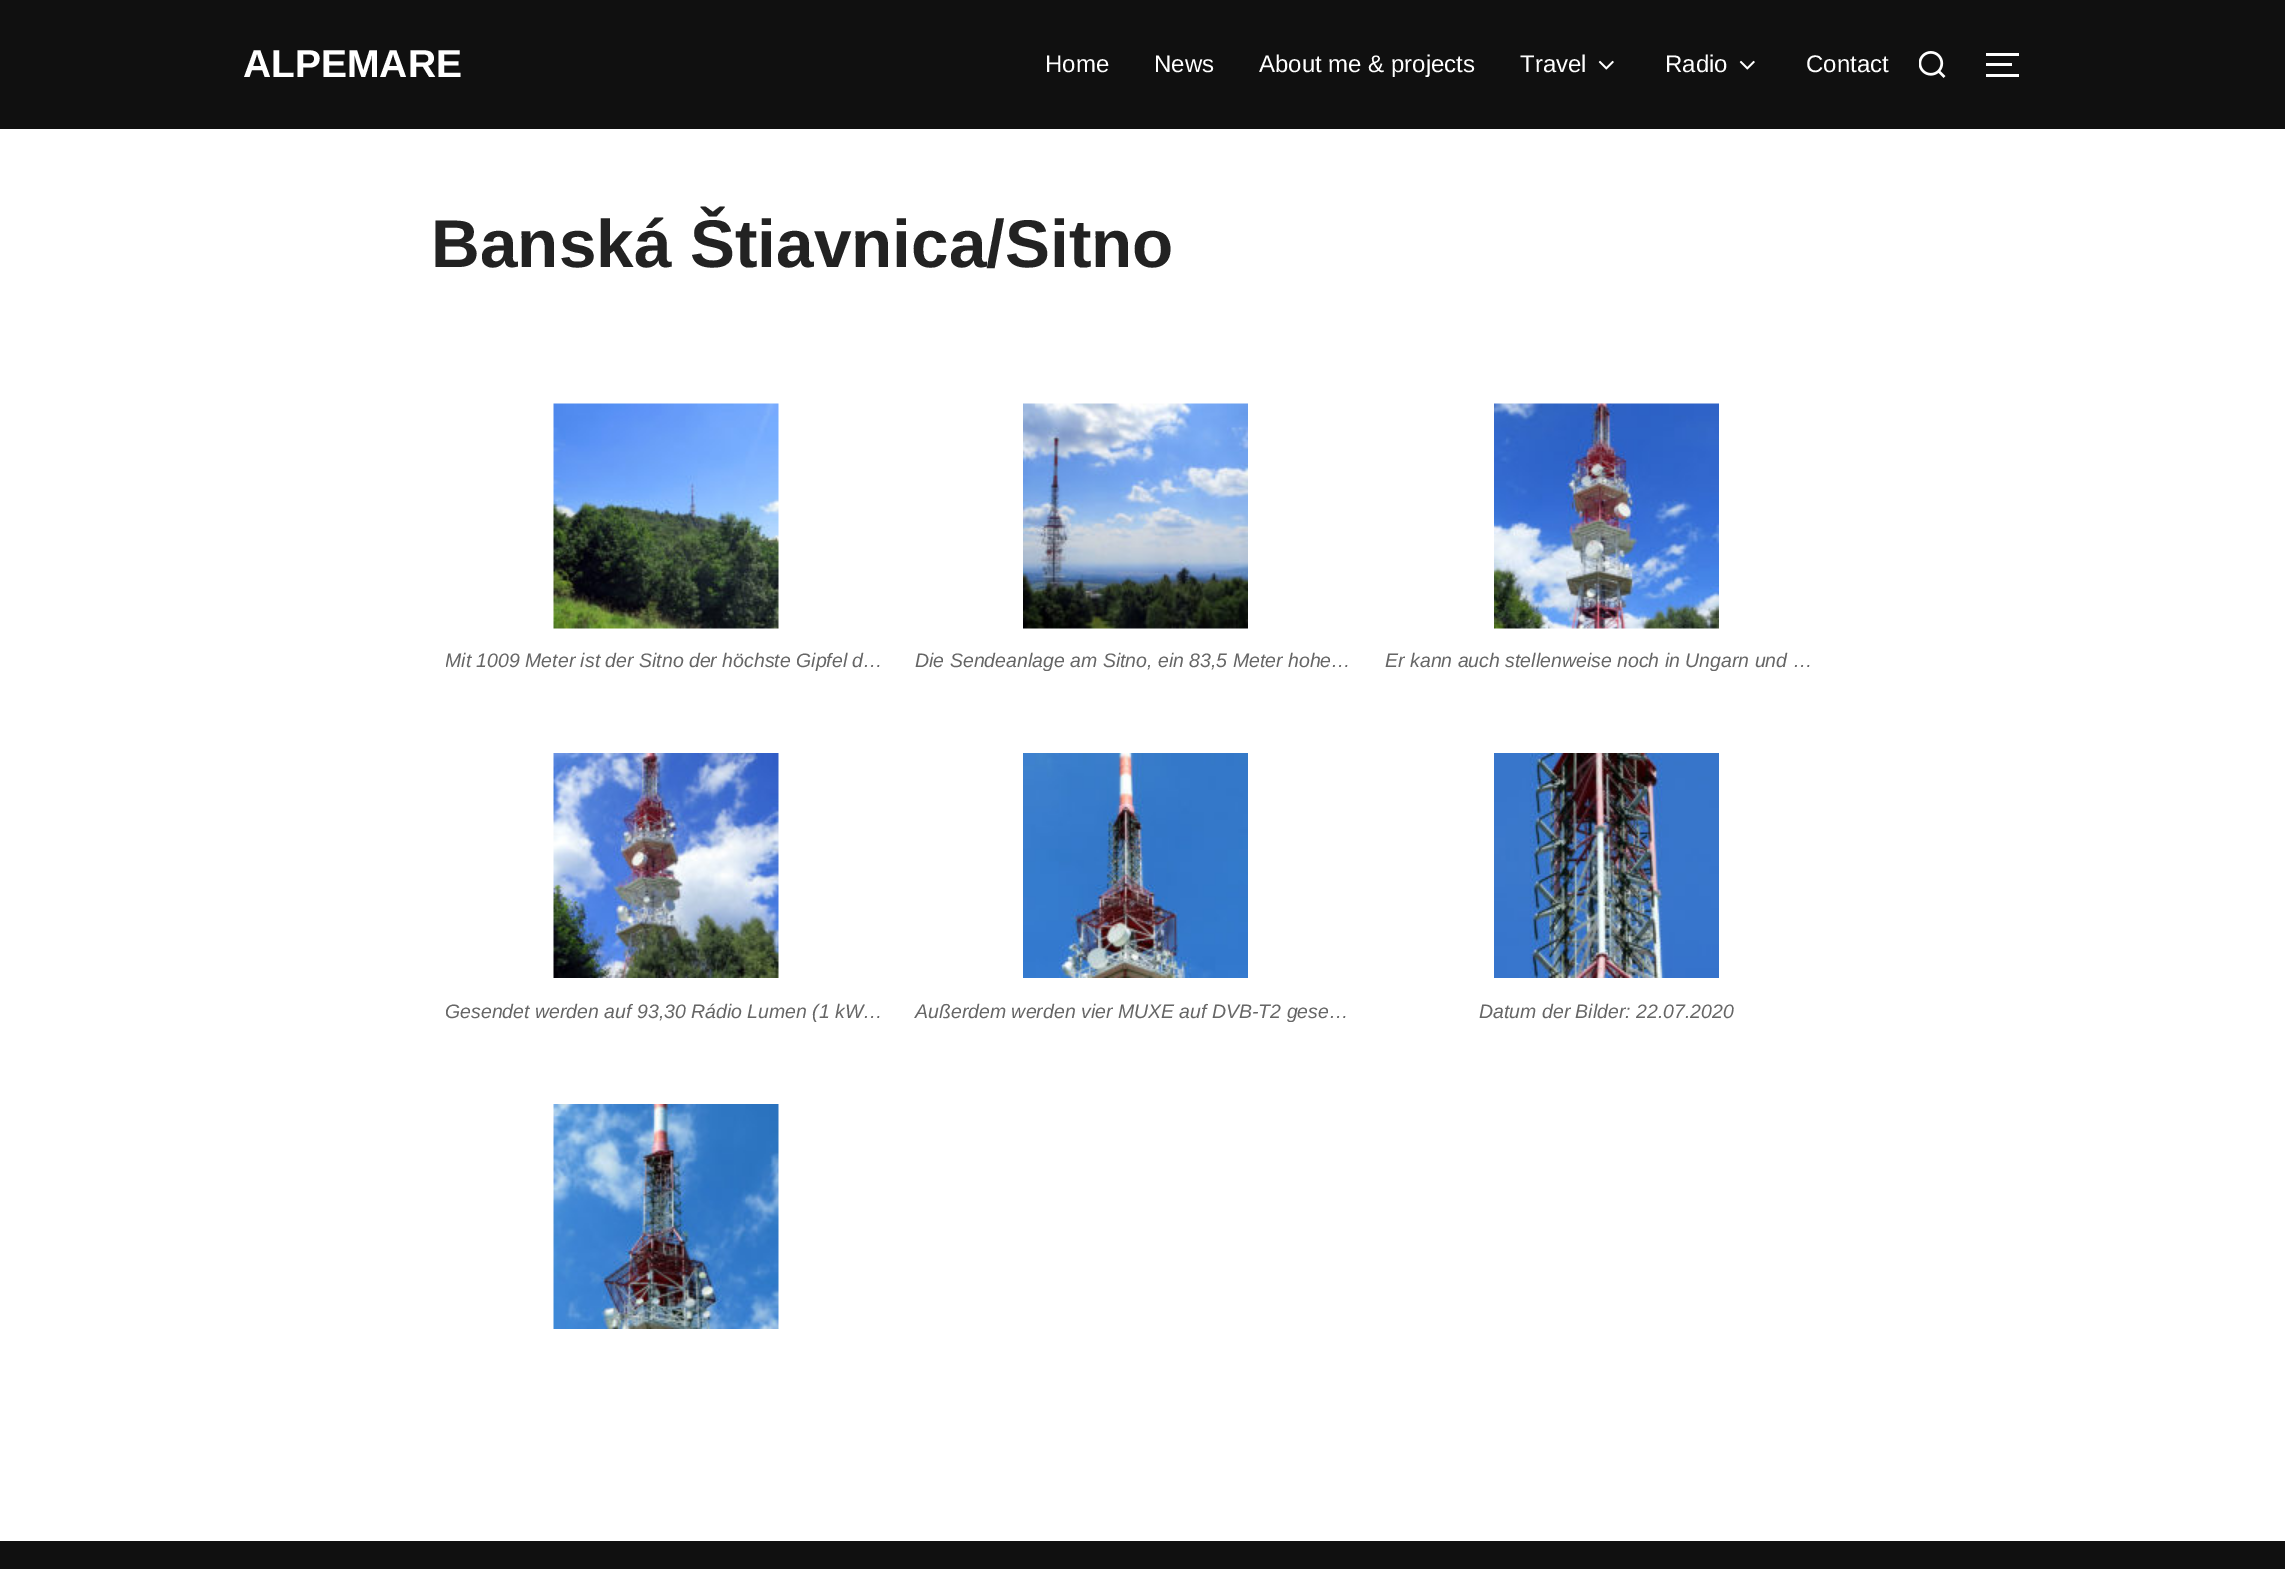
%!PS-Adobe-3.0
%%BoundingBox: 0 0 2285 1569
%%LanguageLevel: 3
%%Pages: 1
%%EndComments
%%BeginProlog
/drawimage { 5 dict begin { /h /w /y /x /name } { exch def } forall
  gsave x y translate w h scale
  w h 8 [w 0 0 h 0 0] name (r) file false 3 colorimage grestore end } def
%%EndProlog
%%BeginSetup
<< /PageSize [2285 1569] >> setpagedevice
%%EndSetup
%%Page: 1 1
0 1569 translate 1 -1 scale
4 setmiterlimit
1 setgray
0 0 2285 1569 rectfill
0.063 setgray
0 0 2285 129 rectfill
(images/1.raw) 1598 60 16 10 drawimage
(images/1.raw) 1739 60 16 10 drawimage
(images/2.raw) 1919 51 27 27 drawimage
1 setgray
1986 53 33 3 rectfill
1986 63 26 3 rectfill
1986 74 33 3 rectfill
(images/3.raw) 553 403 226 226 drawimage
(images/4.raw) 1023 403 225 226 drawimage
(images/5.raw) 1494 403 225 226 drawimage
(images/6.raw) 553 753 226 225 drawimage
(images/7.raw) 1023 753 225 225 drawimage
(images/8.raw) 1494 753 225 225 drawimage
(images/9.raw) 553 1104 226 225 drawimage
0.063 setgray
0 1541 2285 28 rectfill
/LiberationSans-Bold [39 0 0 -39 0 0] selectfont
1 setgray
243 77 moveto (ALPEMARE) show
/LiberationSans-Regular [24 0 0 -24 0 0] selectfont
1045 72 moveto (Home) show
1154 72 moveto (News) show
1259 72 moveto (About me & projects) show
1520 72 moveto (Travel) show
1665 72 moveto (Radio) show
1806 72 moveto (Contact) show
/LiberationSans-Bold [67.5 0 0 -67.5 0 0] selectfont
0.133 setgray
431 267 moveto (Banská Štiavnica/Sitno) show
gsave
446 644 441 37 rectclip
/LiberationSans-Italic [19.5 0 0 -19.5 0 0] selectfont
0.4 setgray
445 667 moveto (Mit 1009 Meter ist der Sitno der höchste Gipfel d…) show
grestore
/LiberationSans-Italic [19.5 0 0 -19.5 0 0] selectfont
0.4 setgray
915 667 moveto (Die Sendeanlage am Sitno, ein 83,5 Meter hohe…) show
1385 667 moveto (Er kann auch stellenweise noch in Ungarn und …) show
gsave
446 995 441 37 rectclip
445 1018 moveto (Gesendet werden auf 93,30 Rádio Lumen \(1 kW…) show
grestore
915 1018 moveto (Außerdem werden vier MUXE auf DVB-T2 gese…) show
1479 1018 moveto (Datum der Bilder: 22.07.2020) show
showpage
%%EOF
